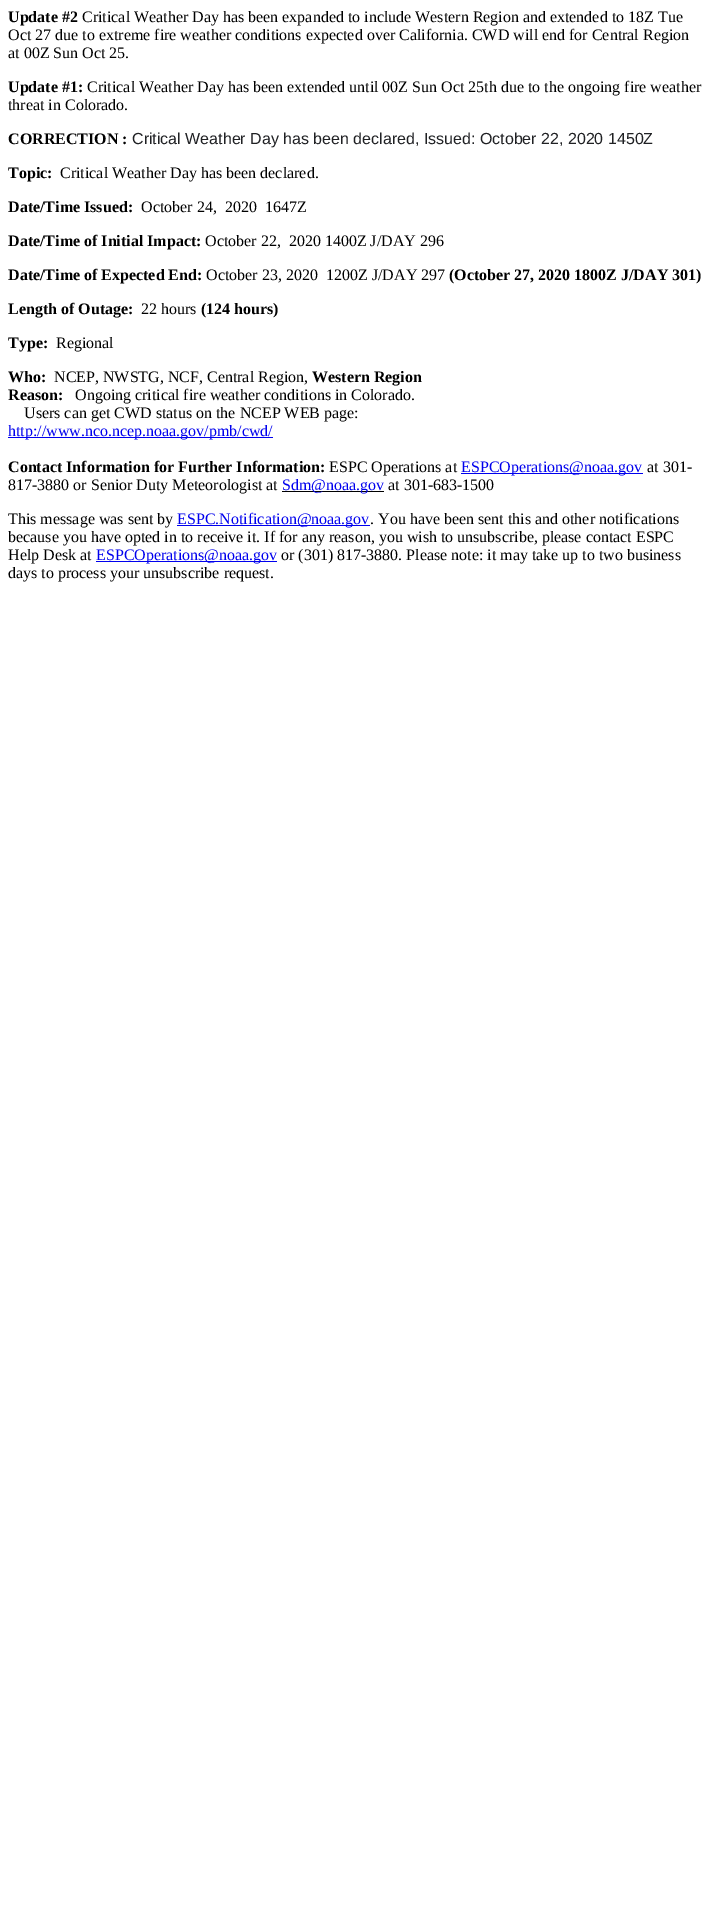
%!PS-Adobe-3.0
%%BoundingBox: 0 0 712 1925
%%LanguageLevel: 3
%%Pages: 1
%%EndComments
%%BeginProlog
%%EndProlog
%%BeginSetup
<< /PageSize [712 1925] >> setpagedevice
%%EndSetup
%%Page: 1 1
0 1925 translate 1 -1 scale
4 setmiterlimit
1 setgray
0 0 712 1925 rectfill
0 0 0.933 setrgbcolor
8 437 265 1 rectfill
461 473 182 1 rectfill
0 setgray
282 491 102 1 rectfill
0 0 0.933 setrgbcolor
177 525 193 1 rectfill
96 561 181 1 rectfill
/LiberationSerif-Bold [16 0 0 -16 0 0] selectfont
0 setgray
8 22 moveto (Update #2) show
/LiberationSerif-Regular [16 0 0 -16 0 0] selectfont
82 22 moveto (Critical Weather Day has been expanded to include Western Region and extended to 18Z Tue) show
8 40 moveto (Oct 27 due to extreme fire weather conditions expected over California. CWD will end for Central Region) show
8 58 moveto (at 00Z Sun Oct 25.) show
/LiberationSerif-Bold [16 0 0 -16 0 0] selectfont
8 92 moveto (Update #1:) show
/LiberationSerif-Regular [16 0 0 -16 0 0] selectfont
87 92 moveto (Critical Weather Day has been extended until 00Z Sun Oct 25th due to the ongoing fire weather) show
8 110 moveto (threat in Colorado.) show
/LiberationSerif-Bold [16 0 0 -16 0 0] selectfont
8 144 moveto (CORRECTION :) show
/LiberationSans-Regular [16 0 0 -16 0 0] selectfont
0.125 0.129 0.141 setrgbcolor
132 144 moveto (Critical Weather Day has been declared, Issued: October 22, 2020 1450Z) show
/LiberationSerif-Bold [16 0 0 -16 0 0] selectfont
0 setgray
8 178 moveto (Topic:) show
/LiberationSerif-Regular [16 0 0 -16 0 0] selectfont
60 178 moveto (Critical Weather Day has been declared.) show
/LiberationSerif-Bold [16 0 0 -16 0 0] selectfont
8 212 moveto (Date/Time Issued:) show
/LiberationSerif-Regular [16 0 0 -16 0 0] selectfont
141 212 moveto (October 24,  2020  1647Z) show
/LiberationSerif-Bold [16 0 0 -16 0 0] selectfont
8 246 moveto (Date/Time of Initial Impact:) show
/LiberationSerif-Regular [16 0 0 -16 0 0] selectfont
205 246 moveto (October 22,  2020 1400Z J/DAY 296) show
/LiberationSerif-Bold [16 0 0 -16 0 0] selectfont
8 280 moveto (Date/Time of Expected End:) show
/LiberationSerif-Regular [16 0 0 -16 0 0] selectfont
206 280 moveto (October 23, 2020) show
326 280 moveto (1200Z J/DAY 297) show
/LiberationSerif-Bold [16 0 0 -16 0 0] selectfont
449 280 moveto (\(October 27, 2020 1800Z J/DAY 301\)) show
8 314 moveto (Length of Outage:) show
/LiberationSerif-Regular [16 0 0 -16 0 0] selectfont
141 314 moveto (22 hours) show
/LiberationSerif-Bold [16 0 0 -16 0 0] selectfont
201 314 moveto (\(124 hours\)) show
8 348 moveto (Type:) show
/LiberationSerif-Regular [16 0 0 -16 0 0] selectfont
56 348 moveto (Regional) show
/LiberationSerif-Bold [16 0 0 -16 0 0] selectfont
8 382 moveto (Who:) show
/LiberationSerif-Regular [16 0 0 -16 0 0] selectfont
54 382 moveto (NCEP, NWSTG, NCF, Central Region,) show
/LiberationSerif-Bold [16 0 0 -16 0 0] selectfont
312 382 moveto (Western Region) show
8 400 moveto (Reason:) show
/LiberationSerif-Regular [16 0 0 -16 0 0] selectfont
75 400 moveto (Ongoing critical fire weather conditions in Colorado.) show
24 418 moveto (Users can get CWD status on the NCEP WEB page:) show
0 0 0.933 setrgbcolor
8 436 moveto (http://www.nco.ncep.noaa.gov/pmb/cwd/) show
/LiberationSerif-Bold [16 0 0 -16 0 0] selectfont
0 setgray
8 472 moveto (Contact Information for Further Information:) show
/LiberationSerif-Regular [16 0 0 -16 0 0] selectfont
329 472 moveto (ESPC Operations at) show
0 0 0.933 setrgbcolor
461 472 moveto (ESPCOperations@noaa.gov) show
0 setgray
647 472 moveto (at 301-) show
8 490 moveto (817-3880 or Senior Duty Meteorologist at) show
0 0 0.933 setrgbcolor
282 490 moveto (Sdm@noaa.gov) show
0 setgray
388 490 moveto (at 301-683-1500) show
8 524 moveto (This message was sent by) show
0 0 0.933 setrgbcolor
177 524 moveto (ESPC.Notification@noaa.gov) show
0 setgray
370 524 moveto (. You have been sent this and other notifications) show
8 542 moveto (because you have opted in to receive it. If for any reason, you wish to unsubscribe, please contact ESPC) show
8 560 moveto (Help Desk at) show
0 0 0.933 setrgbcolor
96 560 moveto (ESPCOperations@noaa.gov) show
0 setgray
281 560 moveto (or \(301\) 817-3880. Please note: it may take up to two business) show
8 578 moveto (days to process your unsubscribe request.) show
showpage
%%EOF
